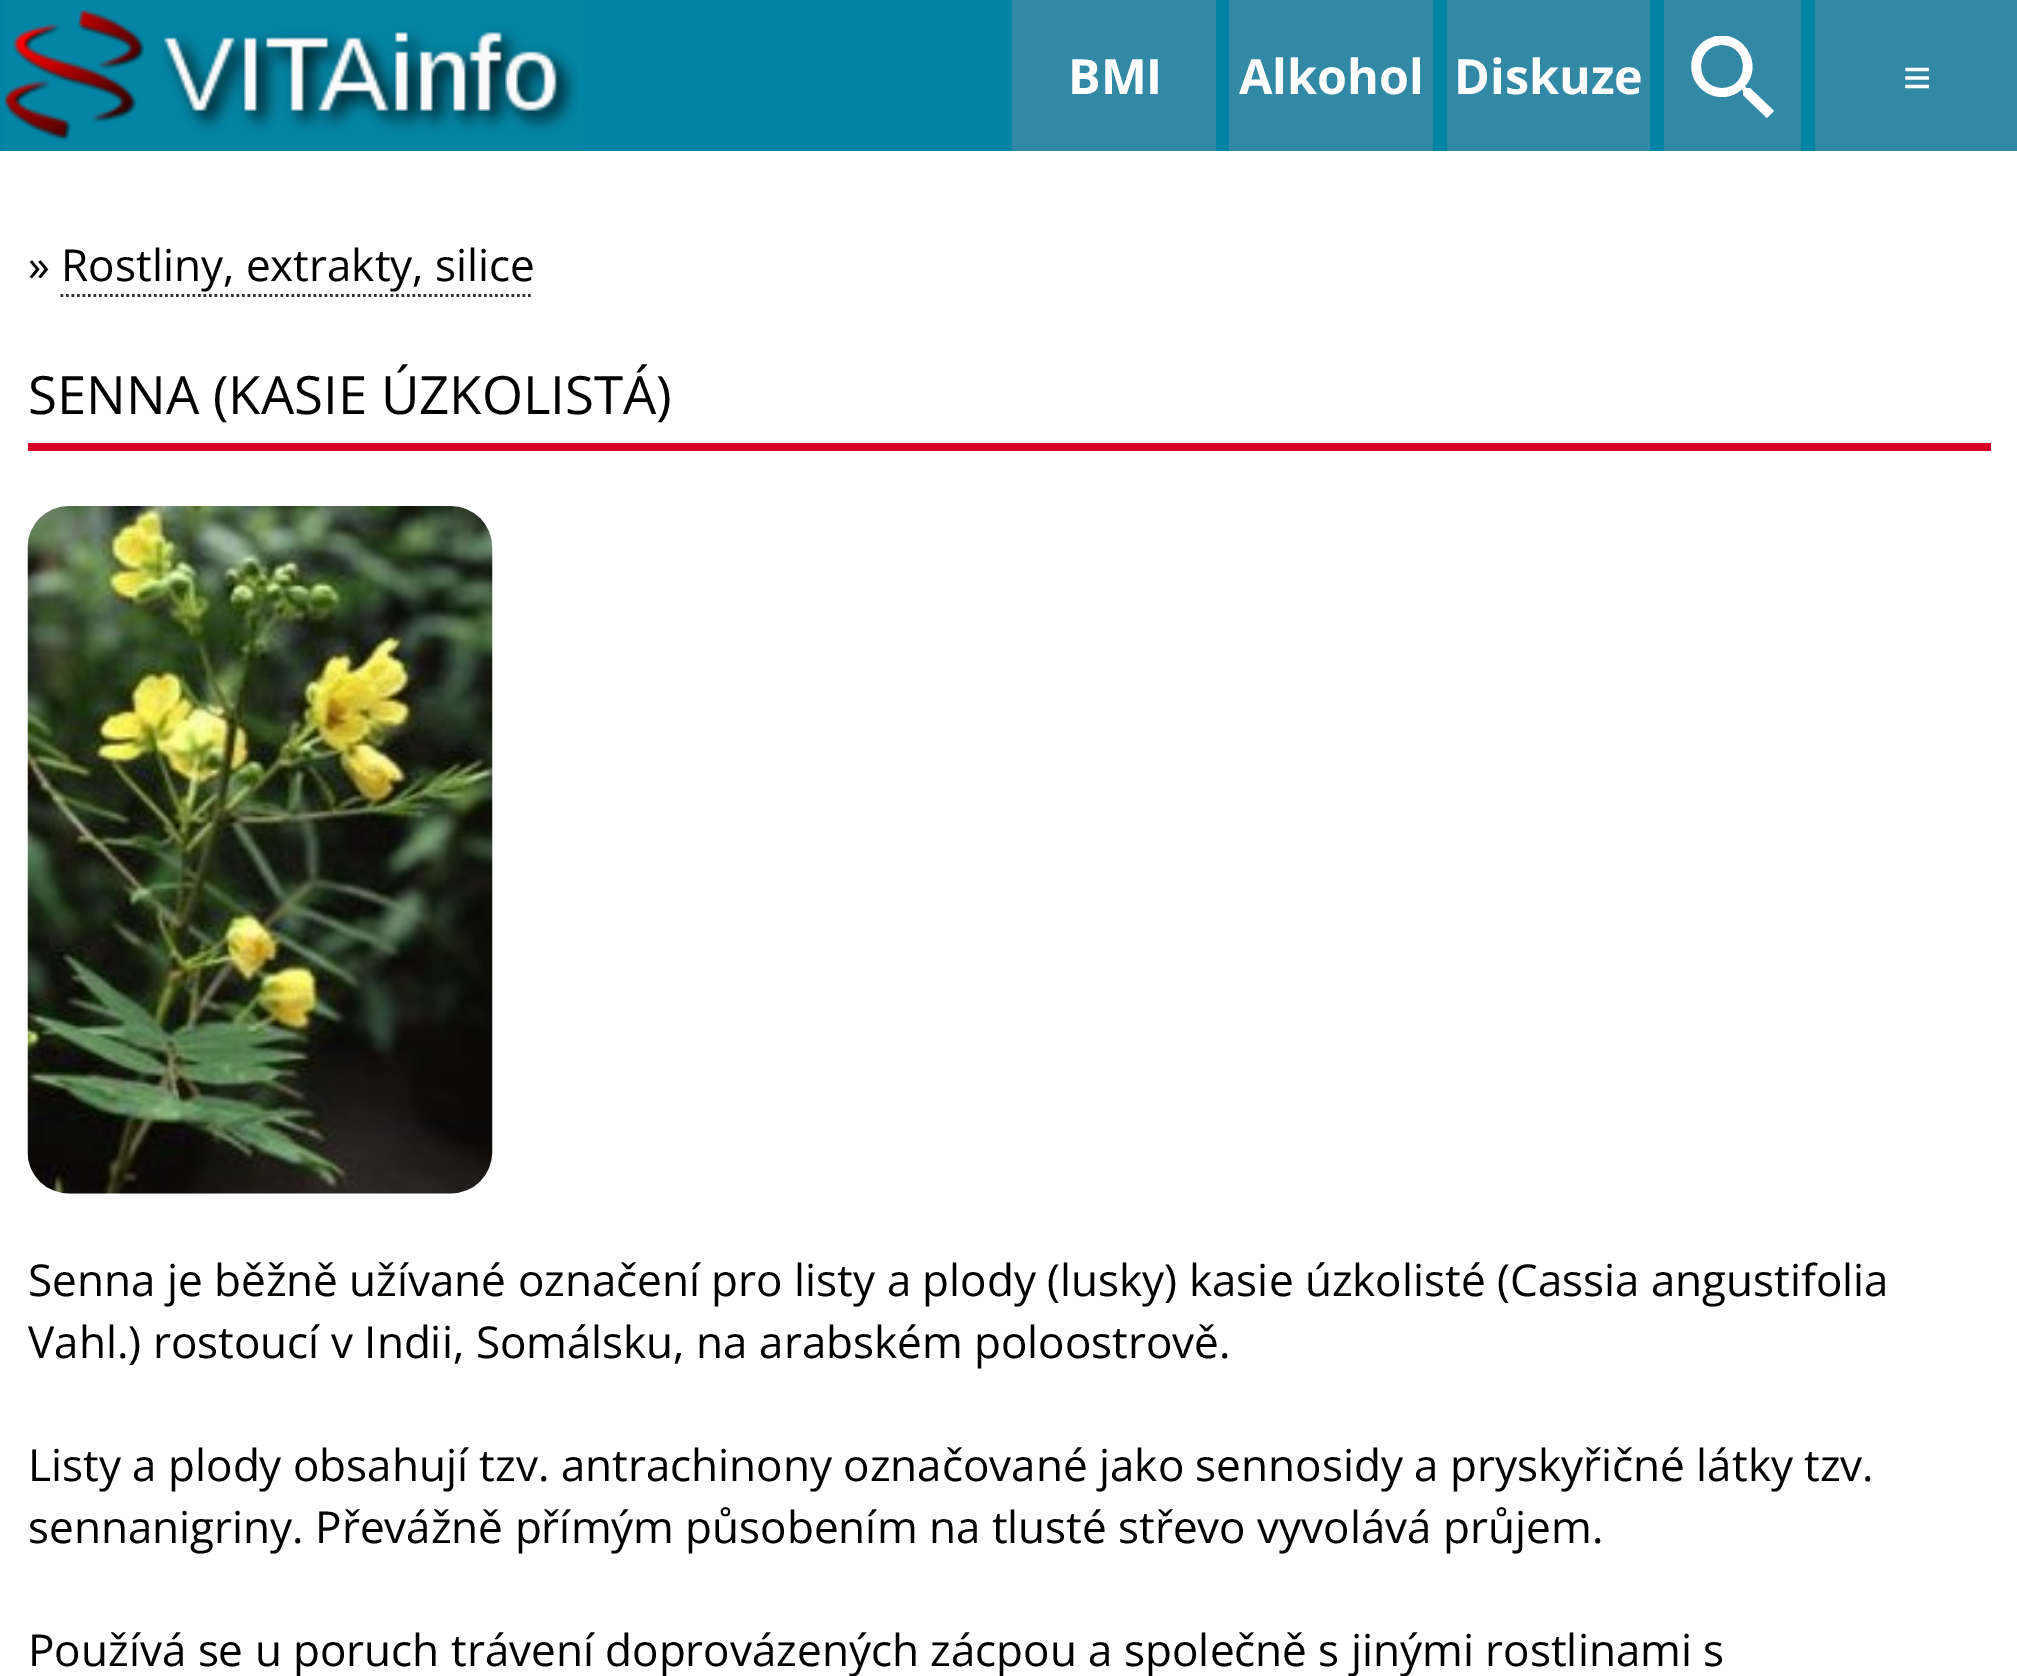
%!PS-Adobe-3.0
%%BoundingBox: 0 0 2017 1676
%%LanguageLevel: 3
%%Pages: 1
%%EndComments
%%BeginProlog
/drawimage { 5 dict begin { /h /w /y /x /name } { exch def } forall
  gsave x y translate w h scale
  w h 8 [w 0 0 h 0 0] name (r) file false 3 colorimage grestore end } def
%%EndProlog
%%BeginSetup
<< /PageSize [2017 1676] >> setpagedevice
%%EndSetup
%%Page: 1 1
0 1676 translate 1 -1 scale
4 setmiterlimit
1 setgray
0 0 2017 1676 rectfill
0 0.518 0.647 setrgbcolor
0 0 1815 151 rectfill
0.016 0.522 0.647 setrgbcolor
6 0 577 151 rectfill
(images/1.raw) 5 10 574 131 drawimage
0.192 0.537 0.651 setrgbcolor
1012 0 204 151 rectfill
1229 0 204 151 rectfill
1447 0 203 151 rectfill
1664 0 137 151 rectfill
gsave
1691 36 83 82 rectclip
1 setgray
newpath 1750 88 moveto 1746 88 lineto 1745 86 lineto 1764 65 1744 31 1716 36 curveto 1710 38 1704 40 1700 45 curveto 1696 49 1693 54 1692 60 curveto 1686 89 1721 109 1742 89 curveto 1743 91 lineto 1743 95 lineto 1767 118 lineto 1774 111 lineto closepath 1722 88 moveto 1694 88 1694 45 1722 45 curveto 1750 45 1750 88 1722 88 curveto closepath fill
grestore
1815 0 202 151 rectfill
0.2 setgray
2.8 setlinewidth
[2.75 2.75] 0 setdash
newpath 60.5 295.5 moveto 533.5 295.5 lineto stroke
0.847 0 0.153 setrgbcolor
28 443 1963 8 rectfill
(images/2.raw) 27 506 466 688 drawimage
/OpenSans-Bold [48.5 0 0 -48.5 0 0] selectfont
1 setgray
1068 94 moveto (BMI) show
1239 94 moveto (Alkohol) show
1454 94 moveto (Diskuze) show
/LiberationSans-Bold [48.5 0 0 -48.5 0 0] selectfont
1903 94 moveto (≡) show
/OpenSans-Regular [44 0 0 -44 0 0] selectfont
0 setgray
28 281 moveto (» Rostliny, extrakty, silice) show
/OpenSans-Regular [52.75 0 0 -52.75 0 0] selectfont
28 414 moveto (SENNA \(KASIE ÚZKOLISTÁ\)) show
/OpenSans-Regular [44 0 0 -44 0 0] selectfont
28 1296 moveto (Senna je běžně užívané označení pro listy a plody \(lusky\) kasie úzkolisté \(Cassia angustifolia) show
28 1358 moveto (Vahl.\) rostoucí v Indii, Somálsku, na arabském poloostrově.) show
28 1481 moveto (Listy a plody obsahují tzv. antrachinony označované jako sennosidy a pryskyřičné látky tzv.) show
28 1543 moveto (sennanigriny. Převážně přímým působením na tlusté střevo vyvolává průjem.) show
28 1666 moveto (Používá se u poruch trávení doprovázených zácpou a společně s jinými rostlinami s) show
showpage
%%EOF
